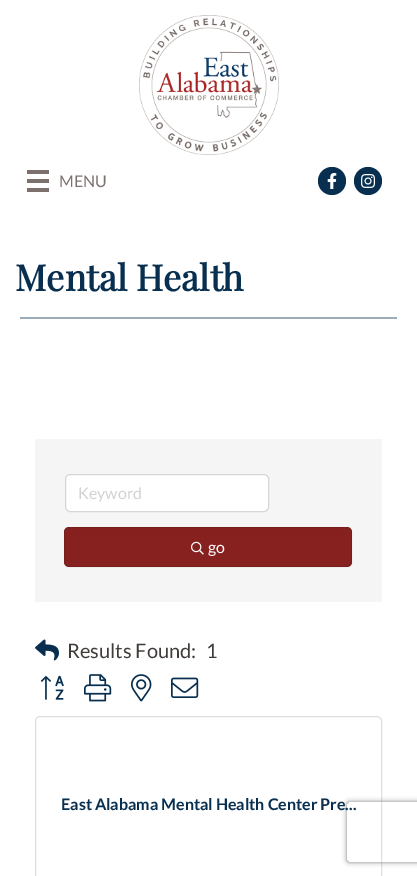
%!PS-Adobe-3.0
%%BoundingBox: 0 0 417 876
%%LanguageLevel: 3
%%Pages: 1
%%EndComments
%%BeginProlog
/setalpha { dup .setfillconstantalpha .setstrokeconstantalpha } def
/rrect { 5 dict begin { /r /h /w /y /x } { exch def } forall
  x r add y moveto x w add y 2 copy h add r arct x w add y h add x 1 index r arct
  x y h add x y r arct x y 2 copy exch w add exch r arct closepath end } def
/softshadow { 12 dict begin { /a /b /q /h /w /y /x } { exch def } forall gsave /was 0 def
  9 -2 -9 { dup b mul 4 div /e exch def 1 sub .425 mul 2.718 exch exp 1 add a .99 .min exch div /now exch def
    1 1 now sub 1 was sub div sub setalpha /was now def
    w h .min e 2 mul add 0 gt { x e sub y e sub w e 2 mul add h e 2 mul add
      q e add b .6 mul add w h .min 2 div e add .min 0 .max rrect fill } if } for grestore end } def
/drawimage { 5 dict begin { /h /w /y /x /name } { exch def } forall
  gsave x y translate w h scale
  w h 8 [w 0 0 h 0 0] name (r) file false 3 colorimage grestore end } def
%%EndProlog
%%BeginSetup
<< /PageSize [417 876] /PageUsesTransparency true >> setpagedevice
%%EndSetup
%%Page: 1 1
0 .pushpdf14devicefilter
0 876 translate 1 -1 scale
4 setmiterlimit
1 setgray
0 0 417 876 rectfill
(images/1.raw) 139 15 140 140 drawimage
0.486 0.443 0.427 setrgbcolor
27 170 22 4 rectfill
27 179 22 4 rectfill
27 188 22 4 rectfill
0.031 0.184 0.31 setrgbcolor
newpath 332 181 14 0 360 arc closepath fill
(images/2.raw) 327 173 10 16 drawimage
newpath 368 181 14 0 360 arc closepath fill
(images/3.raw) 361 174 15 14 drawimage
0.612 0.675 0.725 setrgbcolor
20 317 377 2 rectfill
0.961 setgray
35 439 347 163 rectfill
1 setgray
65.5 474.5 203 37 4.5 rrect gsave fill grestore
0.839 setgray
stroke
0.529 0.129 0.125 setrgbcolor
64 527 288 40 5 rrect fill
0.12 setalpha
0 setgray
64.5 527.5 287 39 4.5 rrect stroke
1 setalpha
(images/4.raw) 191 541 13 14 drawimage
(images/5.raw) 35 639 24 22 drawimage
(images/6.raw) 40 675 24 25 drawimage
(images/7.raw) 84 674 28 28 drawimage
(images/8.raw) 131 674 21 28 drawimage
(images/9.raw) 171 677 28 21 drawimage
0.875 setgray
35.5 716.5 346 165 4.5 rrect stroke
gsave
newpath 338 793 moveto 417 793 lineto 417 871 lineto 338 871 lineto closepath 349 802 moveto 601 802 lineto 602 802 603 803 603 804 curveto 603 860 lineto 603 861 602 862 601 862 curveto 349 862 lineto 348 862 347 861 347 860 curveto 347 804 lineto 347 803 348 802 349 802 curveto closepath eoclip newpath
0.502 setgray
347 802 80 60 2 2.5 1 softshadow
grestore
/Lato-Regular [16 0 0 -16 0 0] selectfont
0.486 0.443 0.427 setrgbcolor
59 187 moveto (MENU) show
/PlayfairDisplay-Bold [36 0 0 -36 0 0] selectfont
0.031 0.184 0.31 setrgbcolor
15 291 moveto (Mental Health) show
/Lato-Regular [16 0 0 -16 0 0] selectfont
0.824 setgray
78 499 moveto (Keyword) show
1 setgray
208 553 moveto (go) show
/Lato-Regular [20 0 0 -20 0 0] selectfont
0.255 0.231 0.227 setrgbcolor
67 658 moveto (Results Found:) show
206 658 moveto (1) show
/Lato-Bold [16 0 0 -16 0 0] selectfont
0.031 0.184 0.31 setrgbcolor
61 810 moveto (East Alabama Mental Health Center Pre...) show
.poppdf14devicefilter showpage
%%EOF
